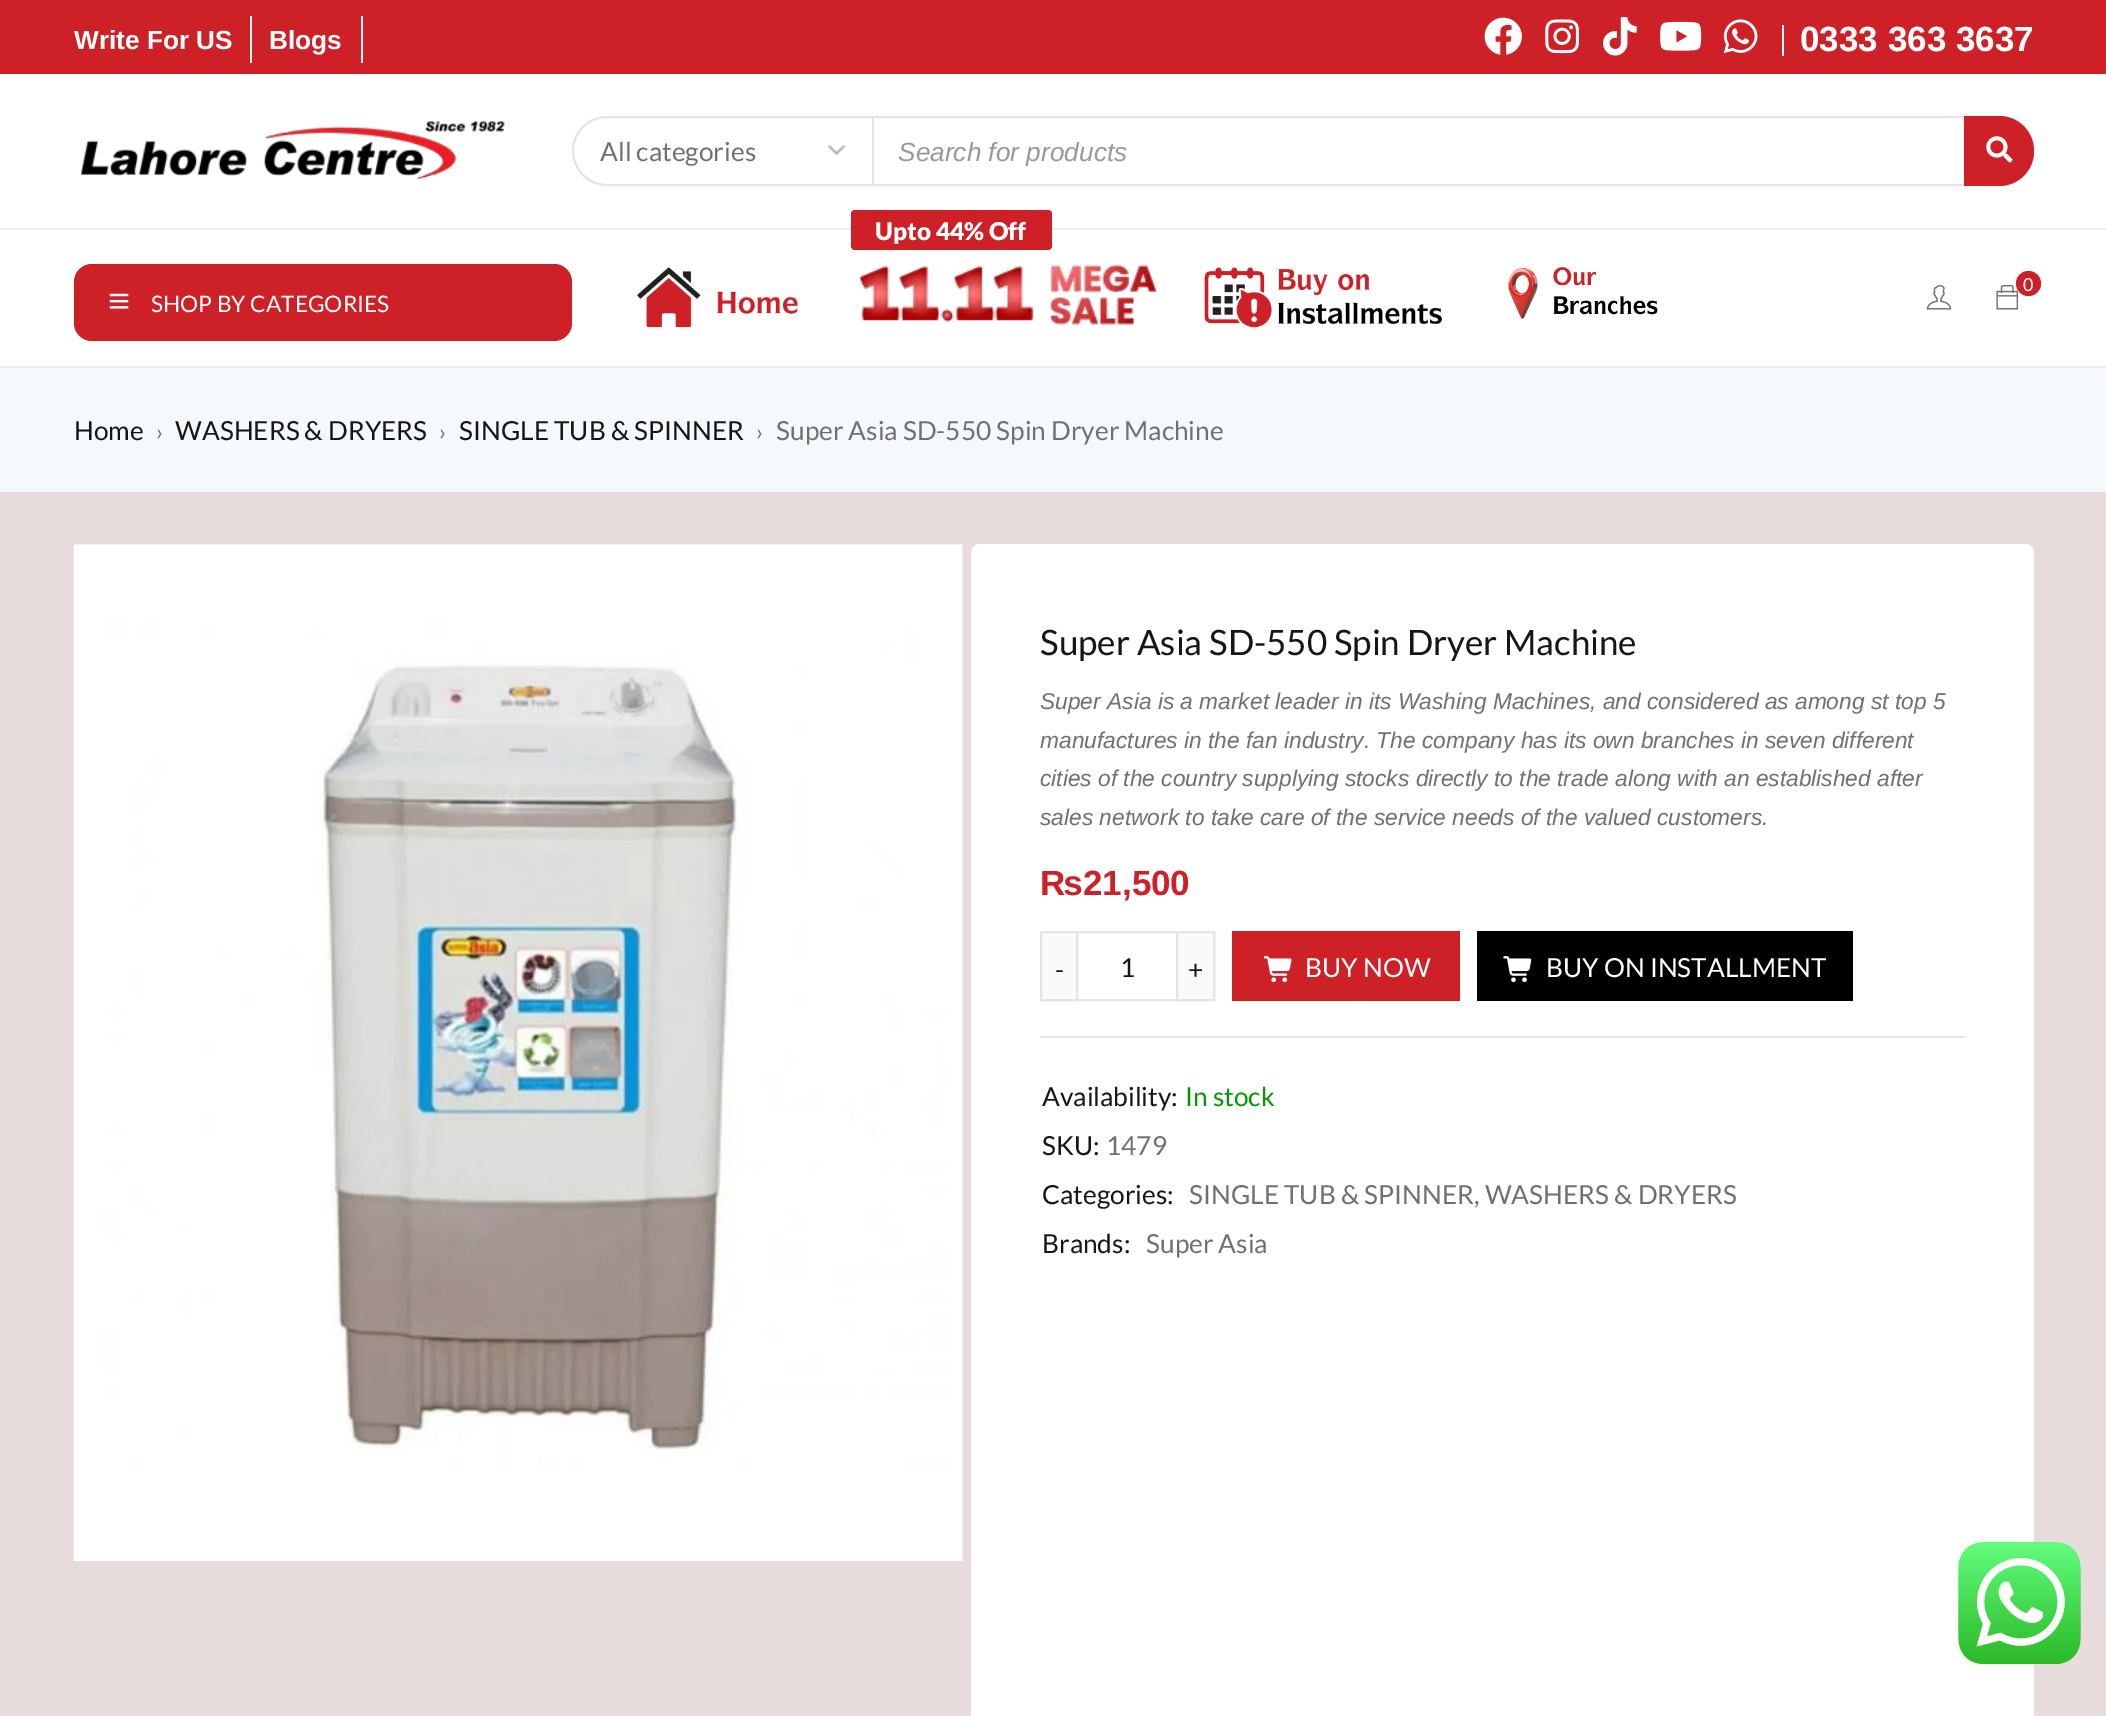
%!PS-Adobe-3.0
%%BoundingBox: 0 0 2106 1716
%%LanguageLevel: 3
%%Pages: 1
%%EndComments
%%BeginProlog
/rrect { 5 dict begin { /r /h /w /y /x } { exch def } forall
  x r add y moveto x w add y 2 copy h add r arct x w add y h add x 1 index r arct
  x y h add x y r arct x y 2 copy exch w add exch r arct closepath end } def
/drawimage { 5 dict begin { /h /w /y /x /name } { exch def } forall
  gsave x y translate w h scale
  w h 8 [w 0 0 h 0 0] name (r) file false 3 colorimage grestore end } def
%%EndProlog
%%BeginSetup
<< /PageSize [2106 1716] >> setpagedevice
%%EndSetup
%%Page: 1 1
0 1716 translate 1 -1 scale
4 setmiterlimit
1 setgray
0 0 2106 1716 rectfill
0.808 0.125 0.153 setrgbcolor
0 0 2106 74 rectfill
1 setgray
250 16 2 47 rectfill
361 16 2 47 rectfill
1782 25 2 31 rectfill
(images/1.raw) 1484 17 38 38 drawimage
(images/2.raw) 1545 19 34 35 drawimage
(images/3.raw) 1603 17 34 39 drawimage
(images/4.raw) 1660 21 42 30 drawimage
(images/5.raw) 1723 19 35 35 drawimage
(images/6.raw) 80 121 425 59 drawimage
0.898 setgray
2 setlinewidth
573 117 1460 68 34 rrect stroke
(images/7.raw) 827 145 19 10 drawimage
872 116 2 70 rectfill
0.808 0.125 0.153 setrgbcolor
newpath 1964 116 moveto 1999 116 lineto 2018.5 116 2034 131.5 2034 151 curveto 2034 170.5 2018.5 186 1999 186 curveto 1964 186 lineto closepath fill
(images/8.raw) 1986 136 27 27 drawimage
0.933 setgray
0 228 2106 2 rectfill
0 366 2106 2 rectfill
0.808 0.125 0.153 setrgbcolor
851 210 201 40 4 rrect fill
(images/9.raw) 858 264 299 61 drawimage
(images/10.raw) 637 267 161 61 drawimage
(images/11.raw) 1204 267 238 61 drawimage
(images/12.raw) 1508 267 150 52 drawimage
74 264 498 77 18 rrect fill
(images/13.raw) 109 293 20 16 drawimage
(images/14.raw) 1926 285 26 25 drawimage
(images/15.raw) 1996 285 23 25 drawimage
newpath 2028.5 283.5 12.5 0 360 arc closepath fill
0.906 0.859 0.859 setrgbcolor
0 492 2106 1224 rectfill
0.965 0.976 0.988 setrgbcolor
0 368 2106 124 rectfill
(images/16.raw) 73 544 890 1017 drawimage
1 setgray
971 544 1063 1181 9 rrect fill
0.898 setgray
1041 932 173 68 rectstroke
0.98 setgray
newpath 1041 932 moveto 1077 932 lineto 1077 1000 lineto 1041 1000 lineto closepath gsave fill grestore
0.898 setgray
stroke
0.98 setgray
newpath 1177 932 moveto 1214 932 lineto 1214 1000 lineto 1177 1000 lineto closepath gsave fill grestore
0.898 setgray
stroke
0.808 0.125 0.153 setrgbcolor
1232 931 228 70 rectfill
(images/17.raw) 1264 956 28 27 drawimage
0 setgray
1477 931 376 70 rectfill
(images/18.raw) 1503 956 29 27 drawimage
0.898 setgray
1040 1036 925 2 rectfill
(images/19.raw) 1958 1542 123 122 drawimage
/LiberationSans-Bold [26.25 0 0 -26.25 0 0] selectfont
1 setgray
74 49 moveto (Write For US) show
269 49 moveto (Blogs) show
/LiberationSans-Bold [35 0 0 -35 0 0] selectfont
1800 51 moveto (0333 363 3637) show
/Lato-Regular [26.25 0 0 -26.25 0 0] selectfont
0.439 setgray
600 161 moveto (All categories) show
gsave
898 137 1046 29 rectclip
/LiberationSans-Italic [26.25 0 0 -26.25 0 0] selectfont
0.6 setgray
898 161 moveto (Search for products) show
grestore
/Lato-Black [24.5 0 0 -24.5 0 0] selectfont
1 setgray
875 240 moveto (Upto 44% Off) show
/Lato-Regular [22.75 0 0 -22.75 0 0] selectfont
151 312 moveto (SHOP BY CATEGORIES) show
/Lato-Regular [18 0 0 -18 0 0] selectfont
2023 291 moveto (0) show
/Lato-Regular [26.25 0 0 -26.25 0 0] selectfont
0.086 setgray
74 440 moveto (Home) show
/Lato-Regular [22.75 0 0 -22.75 0 0] selectfont
0.439 setgray
156 440 moveto (›) show
/Lato-Regular [26.25 0 0 -26.25 0 0] selectfont
0.086 setgray
175 440 moveto (WASHERS & DRYERS) show
/Lato-Regular [22.75 0 0 -22.75 0 0] selectfont
0.439 setgray
439 440 moveto (›) show
/Lato-Regular [26.25 0 0 -26.25 0 0] selectfont
0.086 setgray
459 440 moveto (SINGLE TUB & SPINNER) show
/Lato-Regular [22.75 0 0 -22.75 0 0] selectfont
0.439 setgray
756 440 moveto (›) show
/Lato-Regular [26.25 0 0 -26.25 0 0] selectfont
776 440 moveto (Super Asia SD-550 Spin Dryer Machine) show
/Lato-Regular [35 0 0 -35 0 0] selectfont
0.086 setgray
1040 655 moveto (Super Asia SD-550 Spin Dryer Machine) show
/LiberationSans-Italic [22.75 0 0 -22.75 0 0] selectfont
0.439 setgray
1040 709 moveto (Super Asia is a market leader in its Washing Machines, and considered as among st top 5) show
1040 748 moveto (manufactures in the fan industry. The company has its own branches in seven different) show
1040 786 moveto (cities of the country supplying stocks directly to the trade along with an established after) show
1040 825 moveto (sales network to take care of the service needs of the valued customers.) show
/LiberationSans-Bold [35 0 0 -35 0 0] selectfont
0.808 0.125 0.153 setrgbcolor
1040 895 moveto (₨21,500) show
/Lato-Regular [26.25 0 0 -26.25 0 0] selectfont
0.086 setgray
1055 979 moveto (-) show
1120 977 moveto (1) show
1188 979 moveto (+) show
1 setgray
1305 977 moveto (BUY NOW) show
1546 977 moveto (BUY ON INSTALLMENT) show
0.086 setgray
1042 1106 moveto (Availability:) show
0 0.6 0 setrgbcolor
1185 1106 moveto (In stock) show
0.086 setgray
1042 1155 moveto (SKU:) show
0.439 setgray
1106 1155 moveto (1479) show
0.086 setgray
1042 1204 moveto (Categories:) show
0.439 setgray
1189 1204 moveto (SINGLE TUB & SPINNER, WASHERS & DRYERS) show
0.086 setgray
1042 1253 moveto (Brands:) show
0.439 setgray
1146 1253 moveto (Super Asia) show
showpage
%%EOF
